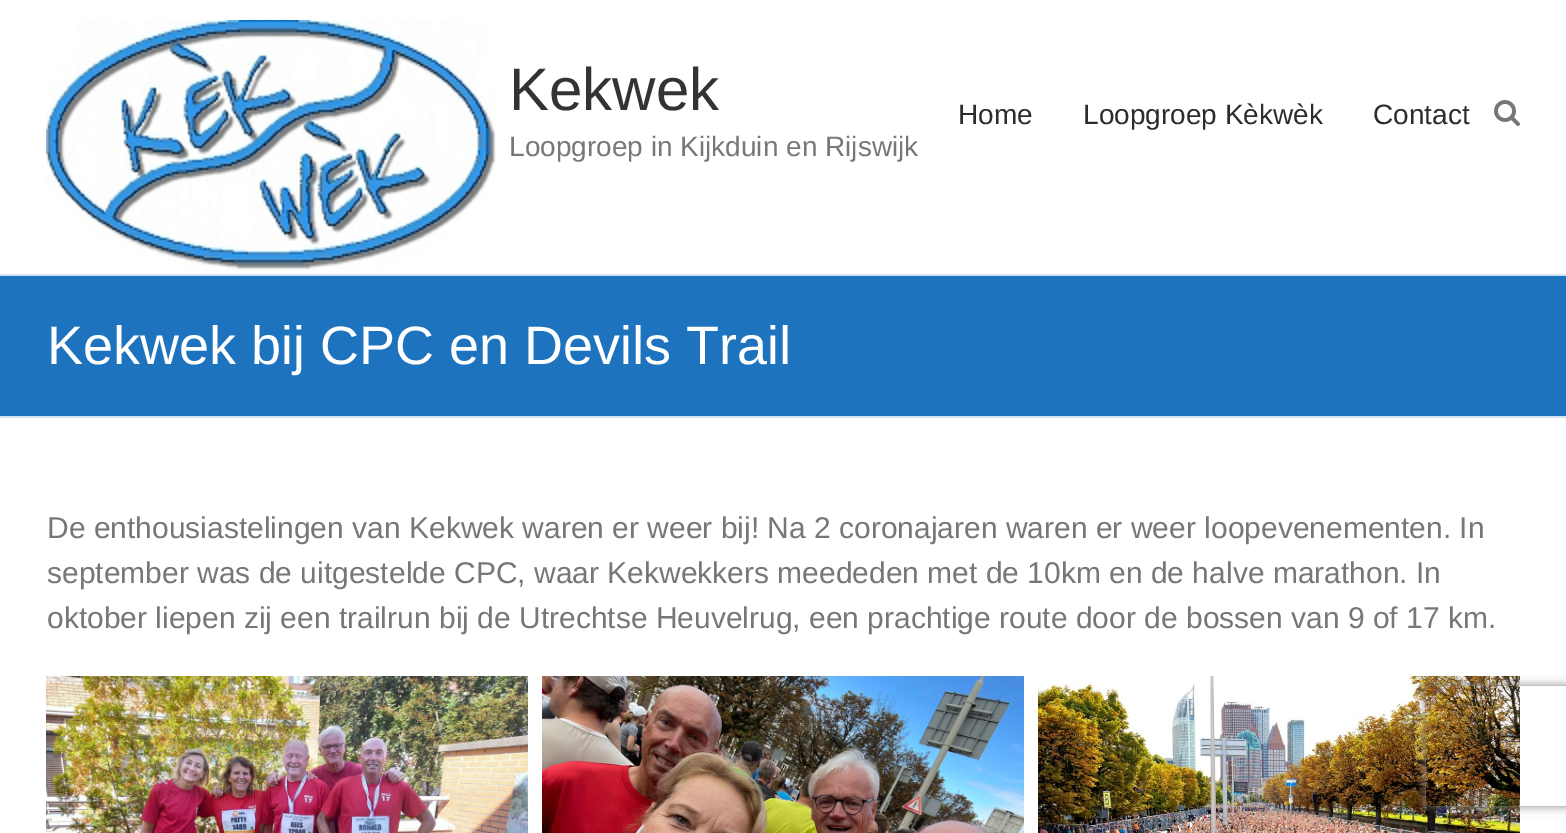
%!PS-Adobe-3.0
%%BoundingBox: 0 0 1566 833
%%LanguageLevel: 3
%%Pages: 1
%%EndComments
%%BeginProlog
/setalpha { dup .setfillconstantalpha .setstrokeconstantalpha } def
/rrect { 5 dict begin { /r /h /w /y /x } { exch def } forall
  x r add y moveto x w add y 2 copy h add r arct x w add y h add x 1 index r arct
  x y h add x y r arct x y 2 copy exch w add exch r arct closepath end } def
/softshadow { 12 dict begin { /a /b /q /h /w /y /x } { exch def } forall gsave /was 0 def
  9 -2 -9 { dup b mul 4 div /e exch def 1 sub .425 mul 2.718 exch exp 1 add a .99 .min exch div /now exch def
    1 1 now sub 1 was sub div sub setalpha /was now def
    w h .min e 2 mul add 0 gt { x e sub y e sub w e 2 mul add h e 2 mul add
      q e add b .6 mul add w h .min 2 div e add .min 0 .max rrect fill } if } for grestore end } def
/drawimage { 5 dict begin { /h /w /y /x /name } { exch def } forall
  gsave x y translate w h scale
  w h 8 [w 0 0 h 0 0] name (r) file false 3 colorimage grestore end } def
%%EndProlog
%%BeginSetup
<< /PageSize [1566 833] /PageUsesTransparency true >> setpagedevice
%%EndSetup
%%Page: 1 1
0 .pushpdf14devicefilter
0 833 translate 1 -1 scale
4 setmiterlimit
1 setgray
0 0 1566 833 rectfill
(images/1.raw) 46 20 450 251 drawimage
(images/2.raw) 1494 100 26 26 drawimage
0.118 0.451 0.745 setrgbcolor
0 276 1566 140 rectfill
0.824 0.89 0.949 setrgbcolor
0 274 1566 2 rectfill
0 416 1566 2 rectfill
(images/3.raw) 46 676 482 157 drawimage
(images/4.raw) 542 676 482 157 drawimage
(images/5.raw) 1038 676 482 157 drawimage
gsave
newpath 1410 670 moveto 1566 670 lineto 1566 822 lineto 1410 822 lineto closepath 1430 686 moveto 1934 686 lineto 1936 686 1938 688 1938 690 curveto 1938 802 lineto 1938 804 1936 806 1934 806 curveto 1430 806 lineto 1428 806 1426 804 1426 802 curveto 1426 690 lineto 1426 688 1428 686 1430 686 curveto closepath eoclip newpath
0.502 setgray
1426 686 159 120 4 5 1 softshadow
grestore
/LiberationSans-Regular [60 0 0 -60 0 0] selectfont
0.2 setgray
509 110 moveto (Kekwek) show
/LiberationSans-Regular [28 0 0 -28 0 0] selectfont
0.467 setgray
509 156 moveto (Loopgroep in Kijkduin en Rijswijk) show
0.173 setgray
958 124 moveto (Home) show
1083 124 moveto (Loopgroep Kèkwèk) show
1373 124 moveto (Contact) show
/LiberationSans-Regular [54 0 0 -54 0 0] selectfont
1 setgray
47 364 moveto (Kekwek bij CPC en Devils Trail) show
/LiberationSans-Regular [30 0 0 -30 0 0] selectfont
0.467 setgray
47 538 moveto (De enthousiastelingen van Kekwek waren er weer bij! Na 2 coronajaren waren er weer loopevenementen. In) show
47 583 moveto (september was de uitgestelde CPC, waar Kekwekkers meededen met de 10km en de halve marathon. In) show
47 628 moveto (oktober liepen zij een trailrun bij de Utrechtse Heuvelrug, een prachtige route door de bossen van 9 of 17 km.) show
.poppdf14devicefilter showpage
%%EOF
